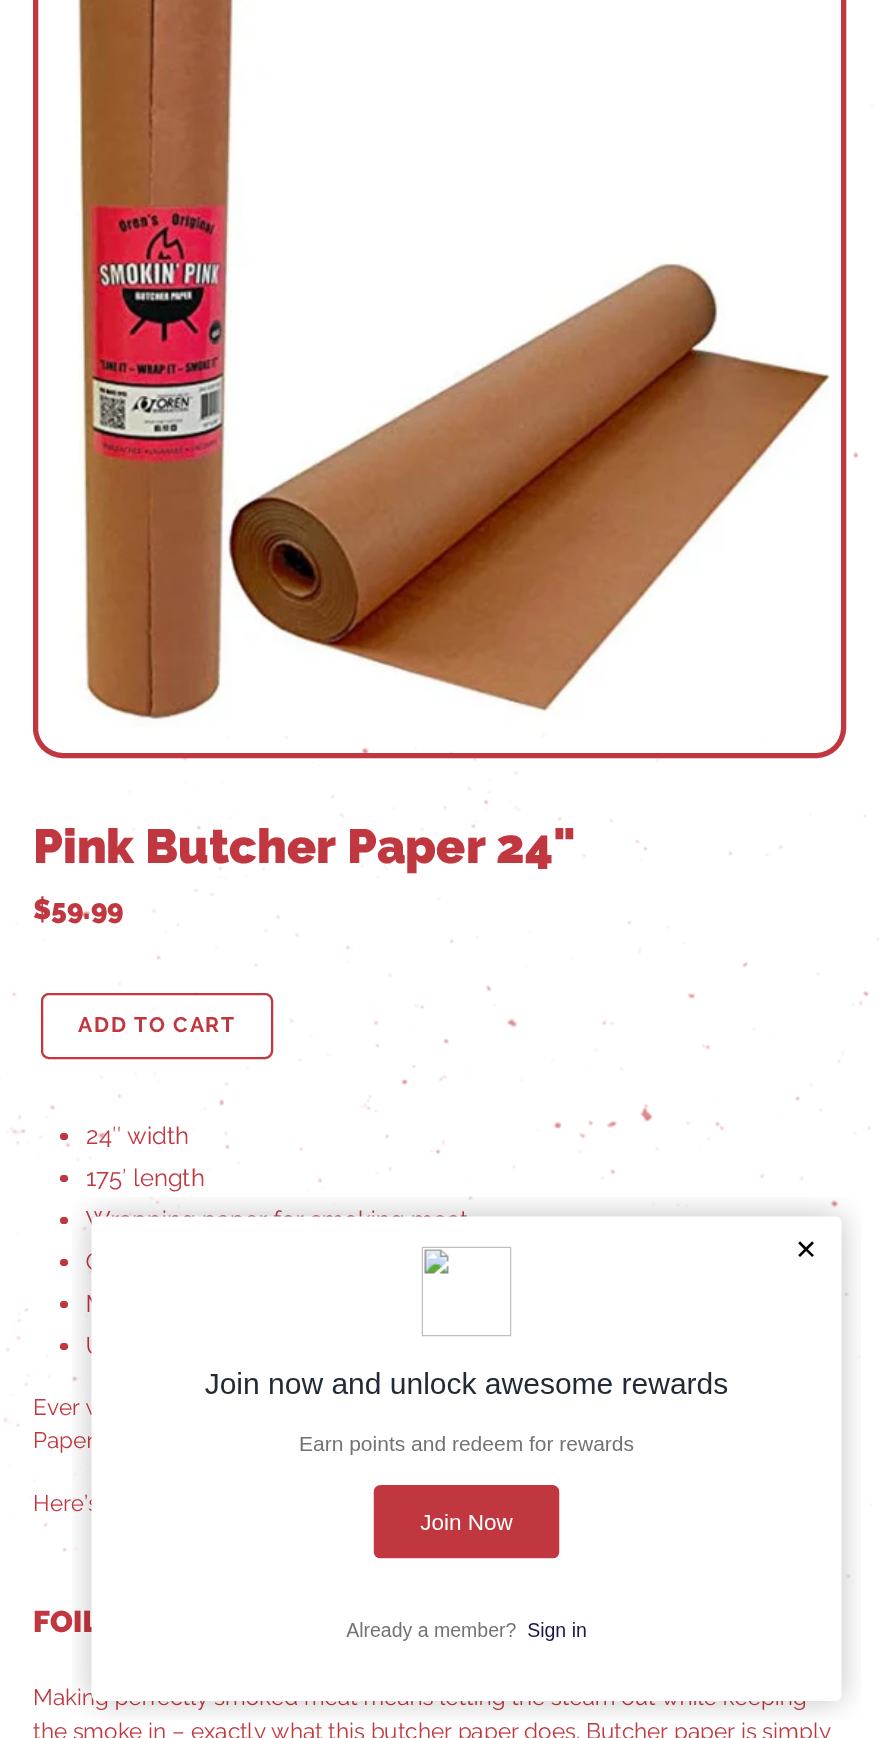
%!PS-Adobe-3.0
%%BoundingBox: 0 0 879 1738
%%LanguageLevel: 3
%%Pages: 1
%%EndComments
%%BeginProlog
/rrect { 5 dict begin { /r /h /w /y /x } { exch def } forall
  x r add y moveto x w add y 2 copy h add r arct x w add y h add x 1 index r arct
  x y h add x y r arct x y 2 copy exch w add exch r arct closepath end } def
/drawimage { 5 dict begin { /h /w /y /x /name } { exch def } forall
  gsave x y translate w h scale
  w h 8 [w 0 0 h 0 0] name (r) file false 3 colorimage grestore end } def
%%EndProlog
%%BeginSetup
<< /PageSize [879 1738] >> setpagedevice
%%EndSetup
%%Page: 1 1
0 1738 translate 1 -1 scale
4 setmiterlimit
1 setgray
0 0 879 1738 rectfill
(images/1.raw) 0 103 879 1480 drawimage
0.757 0.216 0.247 setrgbcolor
5 setlinewidth
35.5 -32.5 808 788 27.5 rrect stroke
(images/2.raw) 74 0 760 728 drawimage
1 setgray
42 994 230 64 7 rrect gsave fill grestore
0.757 0.216 0.247 setrgbcolor
2 setlinewidth
stroke
60 1133 8 7 3.5 rrect fill
60 1175 8 7 3.5 rrect fill
60 1217 8 7 3.5 rrect fill
60 1259 8 7 3.5 rrect fill
60 1301 8 7 3.5 rrect fill
60 1343 8 7 3.5 rrect fill
/Raleway-Black [48 0 0 -48 0 0] selectfont
33 863 moveto (Pink Butcher Paper 24") show
/Raleway-Black [28 0 0 -28 0 0] selectfont
33 919 moveto ($59.99) show
/Raleway-Bold [21 0 0 -21 0 0] selectfont
78 1032 moveto 1.75 0 (ADD TO CART) ashow
/Raleway-Regular [24 0 0 -24 0 0] selectfont
86 1144 moveto (24″ width) show
86 1186 moveto (175′ length) show
/Raleway-Regular [22.5 0 0 -22.5 0 0] selectfont
33 1415 moveto (Ever) show
33 1448 moveto (Paper) show
33 1511 moveto (Here’) show
/Raleway-Black [30 0 0 -30 0 0] selectfont
33 1632 moveto (FOIL) show
/Raleway-Regular [22.5 0 0 -22.5 0 0] selectfont
33 1705 moveto (Maki) show
33 1739 moveto (the smoke in – exactly what this butcher paper does. Butcher paper is simply) show
(images/3.raw) 72 1197 789 523 drawimage
showpage
%%EOF
